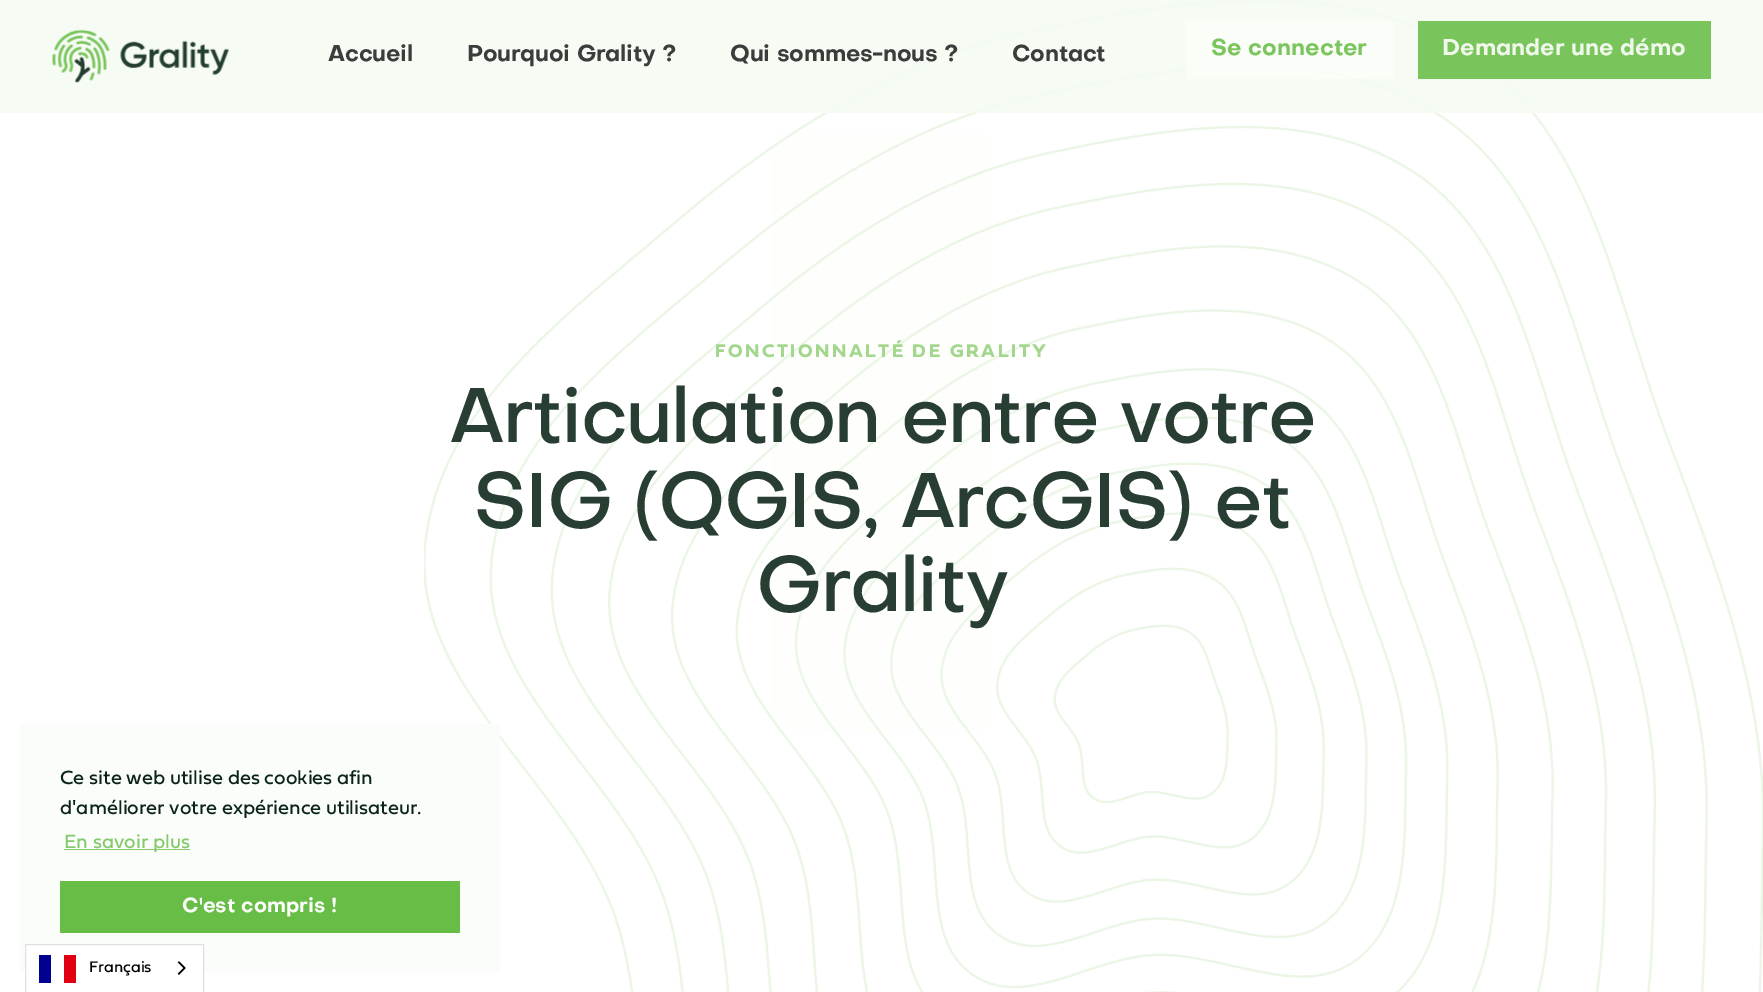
%!PS-Adobe-3.0
%%BoundingBox: 0 0 1763 992
%%LanguageLevel: 3
%%Pages: 1
%%EndComments
%%BeginProlog
/setalpha { dup .setfillconstantalpha .setstrokeconstantalpha } def
/drawimage { 5 dict begin { /h /w /y /x /name } { exch def } forall
  gsave x y translate w h scale
  w h 8 [w 0 0 h 0 0] name (r) file false 3 colorimage grestore end } def
%%EndProlog
%%BeginSetup
<< /PageSize [1763 992] /PageUsesTransparency true >> setpagedevice
%%EndSetup
%%Page: 1 1
0 .pushpdf14devicefilter
0 992 translate 1 -1 scale
4 setmiterlimit
1 setgray
0 0 1763 992 rectfill
(images/2.raw) 424 0 1339 992 drawimage
0.88 setalpha
0.961 0.984 0.949 setrgbcolor
0 0 1763 113 rectfill
1 setalpha
(images/1.raw) 52 29 177 54 drawimage
0.88 setalpha
0.98 0.992 0.976 setrgbcolor
1186 21 207 58 rectfill
0.408 0.741 0.275 setrgbcolor
1418 21 293 58 rectfill
1 setalpha
0.98 0.992 0.976 setrgbcolor
20 724 480 249 rectfill
0.522 0.792 0.416 setrgbcolor
64 849 126 1 rectfill
0.408 0.741 0.275 setrgbcolor
60 881 400 52 rectfill
1 setgray
26 945 177 28 rectfill
0.878 setgray
25.5 944.5 178 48 rectstroke
0 0 0.569 setrgbcolor
39 955 12 28 rectfill
0.882 0 0.059 setrgbcolor
64 955 12 28 rectfill
(images/3.raw) 177 961 9 14 drawimage
/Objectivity-Bold [22.5 0 0 -22.5 0 0] selectfont
0.235 setgray
328 61 moveto -0.25 0 (Accueil) ashow
467 61 moveto -0.25 0 (Pourquoi Grality ?) ashow
730 61 moveto -0.25 0 (Qui sommes-nous ?) ashow
1012 61 moveto -0.25 0 (Contact) ashow
0.478 0.773 0.361 setrgbcolor
1211 55 moveto (Se connecter) show
0.937 0.973 0.922 setrgbcolor
1442 55 moveto (Demander une démo) show
/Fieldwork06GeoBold-Bold [19.1 0 0 -19.1 0 0] selectfont
0.639 0.843 0.557 setrgbcolor
715 357 moveto 2.5 0 (FONCTIONNALTÉ DE GRALITY) ashow
/Objectivity-Medium [76.5 0 0 -76.5 0 0] selectfont
0.157 0.243 0.2 setrgbcolor
449 442 moveto -1.9 0 (Articulation entre votre) ashow
473 527 moveto -1.9 0 (SIG \(QGIS, ArcGIS\) et) ashow
756 611 moveto -1.9 0 (Grality) ashow
/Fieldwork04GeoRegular-Regular [20 0 0 -20 0 0] selectfont
0.043 0.141 0.094 setrgbcolor
60 784 moveto (Ce site web utilise des cookies afin) show
60 814 moveto (d'améliorer votre expérience utilisateur.) show
0.522 0.792 0.416 setrgbcolor
64 848 moveto (En savoir plus) show
/Objectivity-Bold [20 0 0 -20 0 0] selectfont
0.98 0.992 0.976 setrgbcolor
182 912 moveto (C'est compris !) show
/Fieldwork04GeoRegular-Regular [16 0 0 -16 0 0] selectfont
0 setgray
89 972 moveto (Français) show
.poppdf14devicefilter showpage
%%EOF
